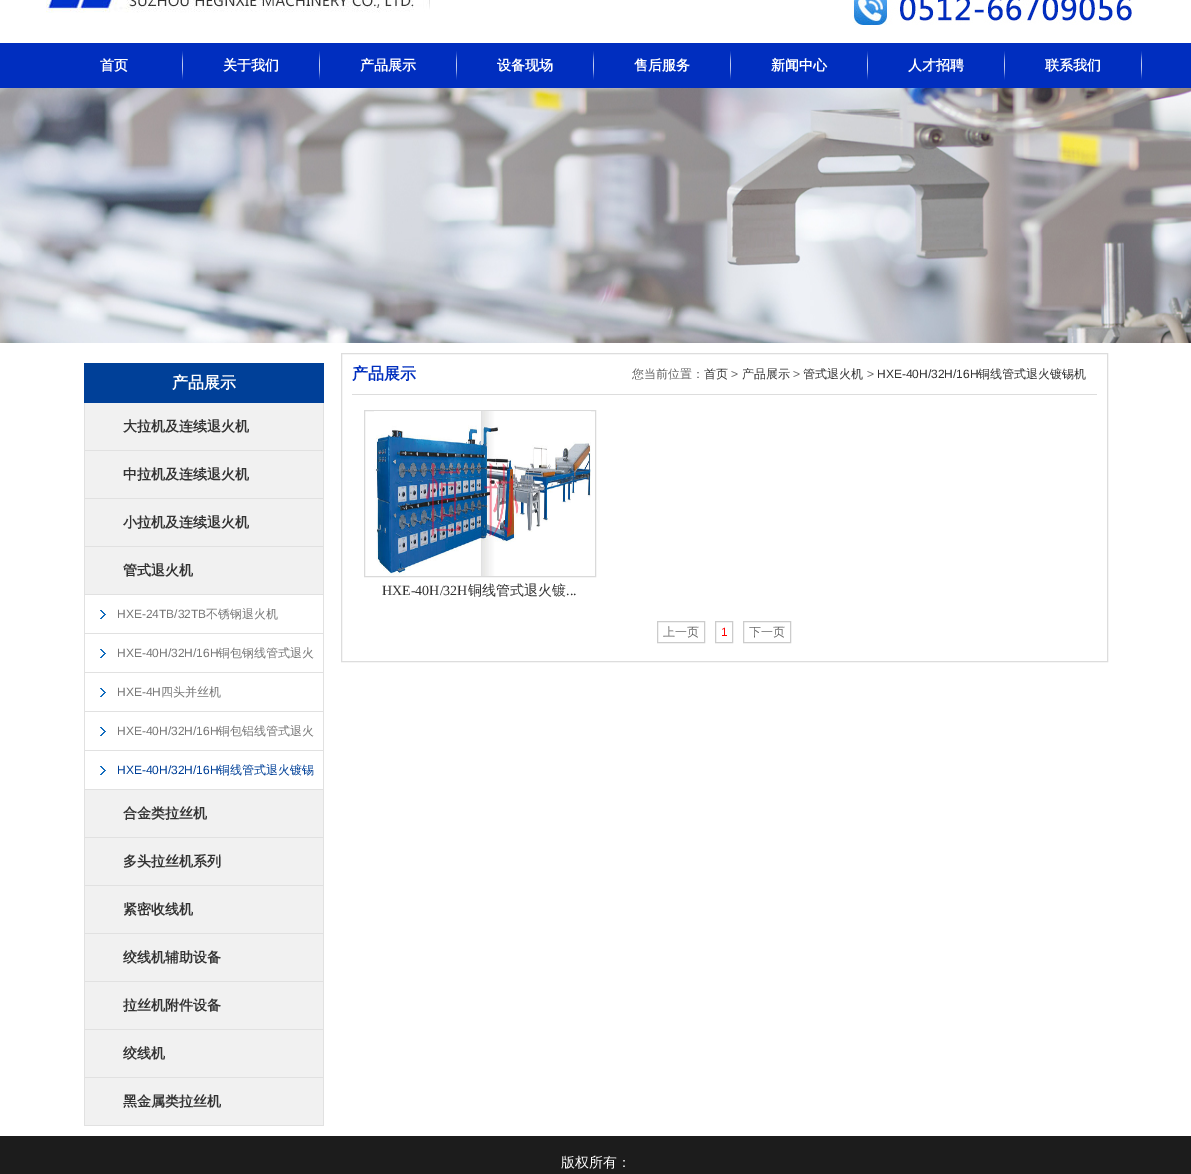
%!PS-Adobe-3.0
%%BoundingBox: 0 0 1191 1174
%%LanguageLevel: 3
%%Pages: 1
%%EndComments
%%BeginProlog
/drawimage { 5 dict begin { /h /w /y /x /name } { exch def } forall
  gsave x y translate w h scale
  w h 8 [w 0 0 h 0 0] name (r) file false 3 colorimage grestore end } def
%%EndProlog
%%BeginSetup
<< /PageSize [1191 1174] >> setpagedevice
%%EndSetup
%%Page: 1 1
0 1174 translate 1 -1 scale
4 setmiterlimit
1 setgray
0 0 1191 1174 rectfill
(images/1.raw) 46 0 384 13 drawimage
(images/2.raw) 853 0 279 25 drawimage
0 0.18 0.749 setrgbcolor
0 43 1191 45 rectfill
(images/3.raw) 182 51 1 29 drawimage
(images/3.raw) 319 51 1 29 drawimage
(images/3.raw) 456 51 1 29 drawimage
(images/3.raw) 593 51 1 29 drawimage
(images/3.raw) 730 51 1 29 drawimage
(images/3.raw) 867 51 1 29 drawimage
(images/3.raw) 1004 51 1 29 drawimage
(images/3.raw) 1141 51 1 29 drawimage
(images/4.raw) 0 88 1191 255 drawimage
0 0.251 0.596 setrgbcolor
84 363 240 40 rectfill
0.945 setgray
85 403 238 47 rectfill
0.882 setgray
323 403 1 192 rectfill
84 450 240 1 rectfill
84 403 1 48 rectfill
0.945 setgray
85 451 238 47 rectfill
0.882 setgray
84 498 240 1 rectfill
84 451 1 48 rectfill
0.945 setgray
85 499 238 47 rectfill
0.882 setgray
84 546 240 1 rectfill
84 499 1 48 rectfill
0.945 setgray
85 547 238 47 rectfill
0.882 setgray
84 594 240 1 rectfill
84 547 1 48 rectfill
323 595 1 531 rectfill
84 595 1 195 rectfill
(images/5.raw) 100 610 6 9 drawimage
85 633 238 1 rectfill
(images/5.raw) 100 649 6 9 drawimage
85 672 238 1 rectfill
(images/5.raw) 100 688 6 9 drawimage
85 711 238 1 rectfill
(images/5.raw) 100 727 6 9 drawimage
85 750 238 1 rectfill
(images/5.raw) 100 766 6 9 drawimage
85 789 238 1 rectfill
0.945 setgray
85 790 238 47 rectfill
0.882 setgray
84 837 240 1 rectfill
84 790 1 48 rectfill
0.945 setgray
85 838 238 47 rectfill
0.882 setgray
84 885 240 1 rectfill
84 838 1 48 rectfill
0.945 setgray
85 886 238 47 rectfill
0.882 setgray
84 933 240 1 rectfill
84 886 1 48 rectfill
0.945 setgray
85 934 238 47 rectfill
0.882 setgray
84 981 240 1 rectfill
84 934 1 48 rectfill
0.945 setgray
85 982 238 47 rectfill
0.882 setgray
84 1029 240 1 rectfill
84 982 1 48 rectfill
0.945 setgray
85 1030 238 47 rectfill
0.882 setgray
84 1077 240 1 rectfill
84 1030 1 48 rectfill
0.945 setgray
85 1078 238 47 rectfill
0.882 setgray
84 1125 240 1 rectfill
84 1078 1 48 rectfill
0.867 setgray
341.5 353.5 766 308 rectstroke
352 394 745 1 rectfill
0.855 setgray
364.5 410.5 231 166 rectstroke
(images/6.raw) 374 411 217 165 drawimage
0.8 setgray
657.5 621.5 47 21 rectstroke
715.5 621.5 17 21 rectstroke
743.5 621.5 47 21 rectstroke
0.11 setgray
0 1136 1191 38 rectfill
/WenQuanYiZenHei-Bold [14 0 0 -14 0 0] selectfont
1 setgray
100 70 moveto (首页) show
223 70 moveto (关于我们) show
360 70 moveto (产品展示) show
497 70 moveto (设备现场) show
634 70 moveto (售后服务) show
771 70 moveto (新闻中心) show
908 70 moveto (人才招聘) show
1045 70 moveto (联系我们) show
/WenQuanYiZenHei-Bold [16 0 0 -16 0 0] selectfont
172 388 moveto (产品展示) show
/WenQuanYiZenHei-Bold [14 0 0 -14 0 0] selectfont
0.2 setgray
123 431 moveto (大拉机及连续退火机) show
123 479 moveto (中拉机及连续退火机) show
123 527 moveto (小拉机及连续退火机) show
123 575 moveto (管式退火机) show
/LiberationSans-Regular [12 0 0 -12 0 0] selectfont
0.467 setgray
117 618 moveto (HXE-24TB/32TB) show
/WenQuanYiZenHei-Medium [12 0 0 -12 0 0] selectfont
206 618 moveto (不锈钢退火机) show
/LiberationSans-Regular [12 0 0 -12 0 0] selectfont
117 657 moveto (HXE-40H/32H/16H) show
/WenQuanYiZenHei-Medium [12 0 0 -12 0 0] selectfont
218 657 moveto (铜包钢线管式退火) show
/LiberationSans-Regular [12 0 0 -12 0 0] selectfont
117 696 moveto (HXE-4H) show
/WenQuanYiZenHei-Medium [12 0 0 -12 0 0] selectfont
161 696 moveto (四头并丝机) show
/LiberationSans-Regular [12 0 0 -12 0 0] selectfont
117 735 moveto (HXE-40H/32H/16H) show
/WenQuanYiZenHei-Medium [12 0 0 -12 0 0] selectfont
218 735 moveto (铜包铝线管式退火) show
/LiberationSans-Regular [12 0 0 -12 0 0] selectfont
0 0.251 0.596 setrgbcolor
117 774 moveto (HXE-40H/32H/16H) show
/WenQuanYiZenHei-Medium [12 0 0 -12 0 0] selectfont
218 774 moveto (铜线管式退火镀锡) show
/WenQuanYiZenHei-Bold [14 0 0 -14 0 0] selectfont
0.2 setgray
123 818 moveto (合金类拉丝机) show
123 866 moveto (多头拉丝机系列) show
123 914 moveto (紧密收线机) show
123 962 moveto (绞线机辅助设备) show
123 1010 moveto (拉丝机附件设备) show
123 1058 moveto (绞线机) show
123 1106 moveto (黑金属类拉丝机) show
/WenQuanYiZenHei-Bold [16 0 0 -16 0 0] selectfont
0 0.18 0.745 setrgbcolor
352 379 moveto (产品展示) show
/WenQuanYiZenHei-Medium [12 0 0 -12 0 0] selectfont
0.4 setgray
632 378 moveto (您当前位置：) show
0.2 setgray
704 378 moveto (首页) show
/LiberationSans-Regular [12 0 0 -12 0 0] selectfont
0.4 setgray
731 378 moveto (>) show
/WenQuanYiZenHei-Medium [12 0 0 -12 0 0] selectfont
0.2 setgray
742 378 moveto (产品展示) show
/LiberationSans-Regular [12 0 0 -12 0 0] selectfont
0.4 setgray
793 378 moveto (>) show
/WenQuanYiZenHei-Medium [12 0 0 -12 0 0] selectfont
0.2 setgray
803 378 moveto (管式退火机) show
/LiberationSans-Regular [12 0 0 -12 0 0] selectfont
0.4 setgray
867 378 moveto (>) show
0.2 setgray
877 378 moveto (HXE-40H/32H/16H) show
/WenQuanYiZenHei-Medium [12 0 0 -12 0 0] selectfont
978 378 moveto (铜线管式退火镀锡机) show
/LiberationSerif-Regular [14 0 0 -14 0 0] selectfont
382 595 moveto (HXE-40H/32H) show
/WenQuanYiZenHei-Medium [14 0 0 -14 0 0] selectfont
468 595 moveto (铜线管式退火镀) show
/LiberationSerif-Regular [14 0 0 -14 0 0] selectfont
566 595 moveto (...) show
/WenQuanYiZenHei-Medium [12 0 0 -12 0 0] selectfont
0.4 setgray
663 636 moveto (上一页) show
/LiberationSans-Regular [12 0 0 -12 0 0] selectfont
1 0 0 setrgbcolor
721 636 moveto (1) show
/WenQuanYiZenHei-Medium [12 0 0 -12 0 0] selectfont
0.4 setgray
749 636 moveto (下一页) show
/WenQuanYiZenHei-Medium [14 0 0 -14 0 0] selectfont
1 setgray
561 1167 moveto (版权所有：) show
showpage
%%EOF
